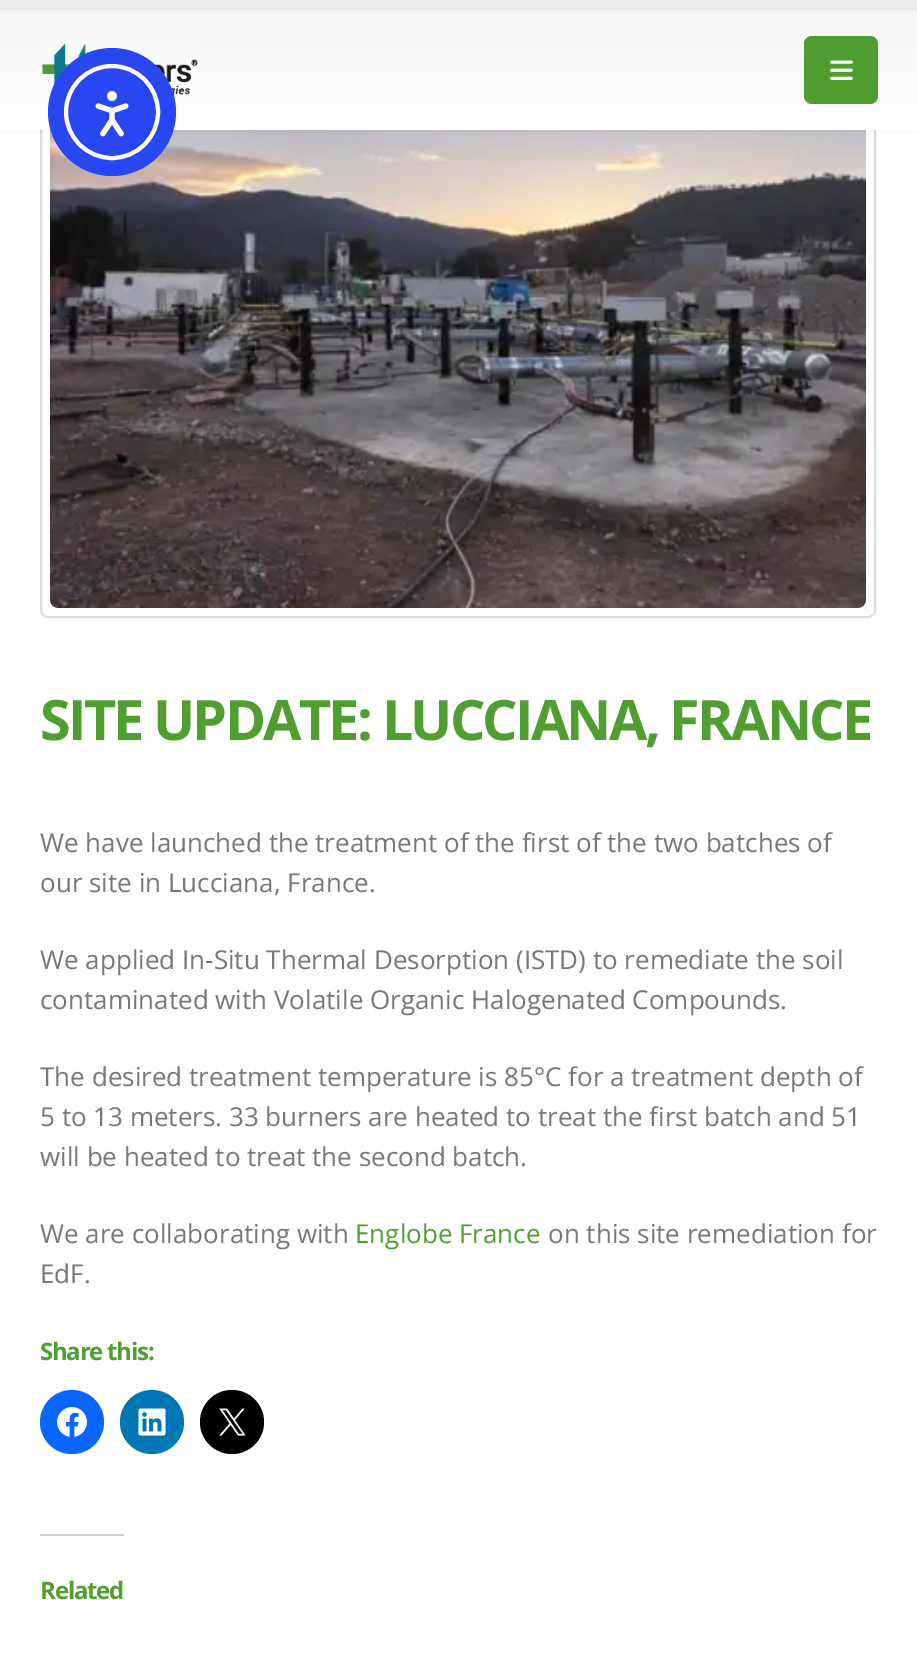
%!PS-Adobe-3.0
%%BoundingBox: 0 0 917 1653
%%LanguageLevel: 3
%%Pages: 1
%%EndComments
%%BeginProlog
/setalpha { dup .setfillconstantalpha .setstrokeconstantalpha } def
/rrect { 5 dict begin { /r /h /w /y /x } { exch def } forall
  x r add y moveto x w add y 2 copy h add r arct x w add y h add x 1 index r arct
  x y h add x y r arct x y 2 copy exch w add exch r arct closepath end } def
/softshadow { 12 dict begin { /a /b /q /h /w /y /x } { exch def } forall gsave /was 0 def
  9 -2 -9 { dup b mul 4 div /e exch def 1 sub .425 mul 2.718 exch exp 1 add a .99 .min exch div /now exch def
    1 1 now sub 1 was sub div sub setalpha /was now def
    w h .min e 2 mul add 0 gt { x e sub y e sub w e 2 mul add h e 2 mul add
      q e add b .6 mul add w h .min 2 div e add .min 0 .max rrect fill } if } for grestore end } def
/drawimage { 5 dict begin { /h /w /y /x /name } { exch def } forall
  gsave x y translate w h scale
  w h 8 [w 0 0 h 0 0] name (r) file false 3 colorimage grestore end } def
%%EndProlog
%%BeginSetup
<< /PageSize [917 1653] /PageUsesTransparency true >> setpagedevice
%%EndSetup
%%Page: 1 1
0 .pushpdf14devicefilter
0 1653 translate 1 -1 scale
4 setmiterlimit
1 setgray
0 0 917 1653 rectfill
0.867 setgray
2 setlinewidth
41 -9 834 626 7 rrect stroke
(images/4.raw) 50 130 816 478 drawimage
0 setgray
0 0 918 130 0 3 0.06 softshadow
gsave newpath 0 10 moveto 917 10 lineto 917 130 lineto 0 130 lineto closepath clip newpath
<< /ShadingType 2 /ColorSpace /DeviceRGB /Coords [459 10 459 130] /Extend [true true] /Function << /FunctionType 2 /Domain [0 1] /C0 [0.965 0.965 0.965] /C1 [1 1 1] /N 1 >> >> shfill grestore
(images/2.raw) 42 43 156 53 drawimage
0.157 0.278 0.953 setrgbcolor
newpath 112 112 64 0 360 arc closepath fill
1 setgray
4 setlinewidth
newpath 112 112 46 0 360 arc closepath stroke
(images/1.raw) 95 91 34 46 drawimage
0.929 setgray
0 0 917 10 rectfill
0.314 0.62 0.184 setrgbcolor
804 36 74 68 8 rrect fill
(images/3.raw) 830 60 23 20 drawimage
0.031 0.4 1 setrgbcolor
newpath 72 1422 32 0 360 arc closepath fill
(images/5.raw) 57 1407 30 30 drawimage
0 0.467 0.71 setrgbcolor
newpath 152 1422 32 0 360 arc closepath fill
(images/6.raw) 138 1408 28 28 drawimage
0 setgray
newpath 232 1422 32 0 360 arc closepath fill
(images/7.raw) 219 1408 27 28 drawimage
0.8 setgray
40 1534 84 2 rectfill
/OpenSans-Bold [55.75 0 0 -55.75 0 0] selectfont
0.314 0.62 0.184 setrgbcolor
40 740 moveto -2.8 0 (SITE UPDATE: LUCCIANA, FRANCE) ashow
/OpenSans-Regular [26 0 0 -26 0 0] selectfont
0.467 setgray
40 852 moveto (We have launched the treatment of the first of the two batches of) show
40 892 moveto (our site in Lucciana, France.) show
40 969 moveto (We applied In-Situ Thermal Desorption \(ISTD\) to remediate the soil) show
40 1009 moveto (contaminated with Volatile Organic Halogenated Compounds.) show
40 1086 moveto (The desired treatment temperature is 85°C for a treatment depth of) show
40 1126 moveto (5 to 13 meters. 33 burners are heated to treat the first batch and 51) show
40 1166 moveto (will be heated to treat the second batch.) show
40 1243 moveto (We are collaborating with) show
0.314 0.62 0.184 setrgbcolor
355 1243 moveto (Englobe France) show
0.467 setgray
548 1243 moveto (on this site remediation for) show
40 1283 moveto (EdF.) show
/OpenSans-Bold [24 0 0 -24 0 0] selectfont
0.314 0.62 0.184 setrgbcolor
40 1360 moveto -1.25 0 (Share this:) ashow
40 1599 moveto -1.25 0 (Related) ashow
.poppdf14devicefilter showpage
%%EOF
